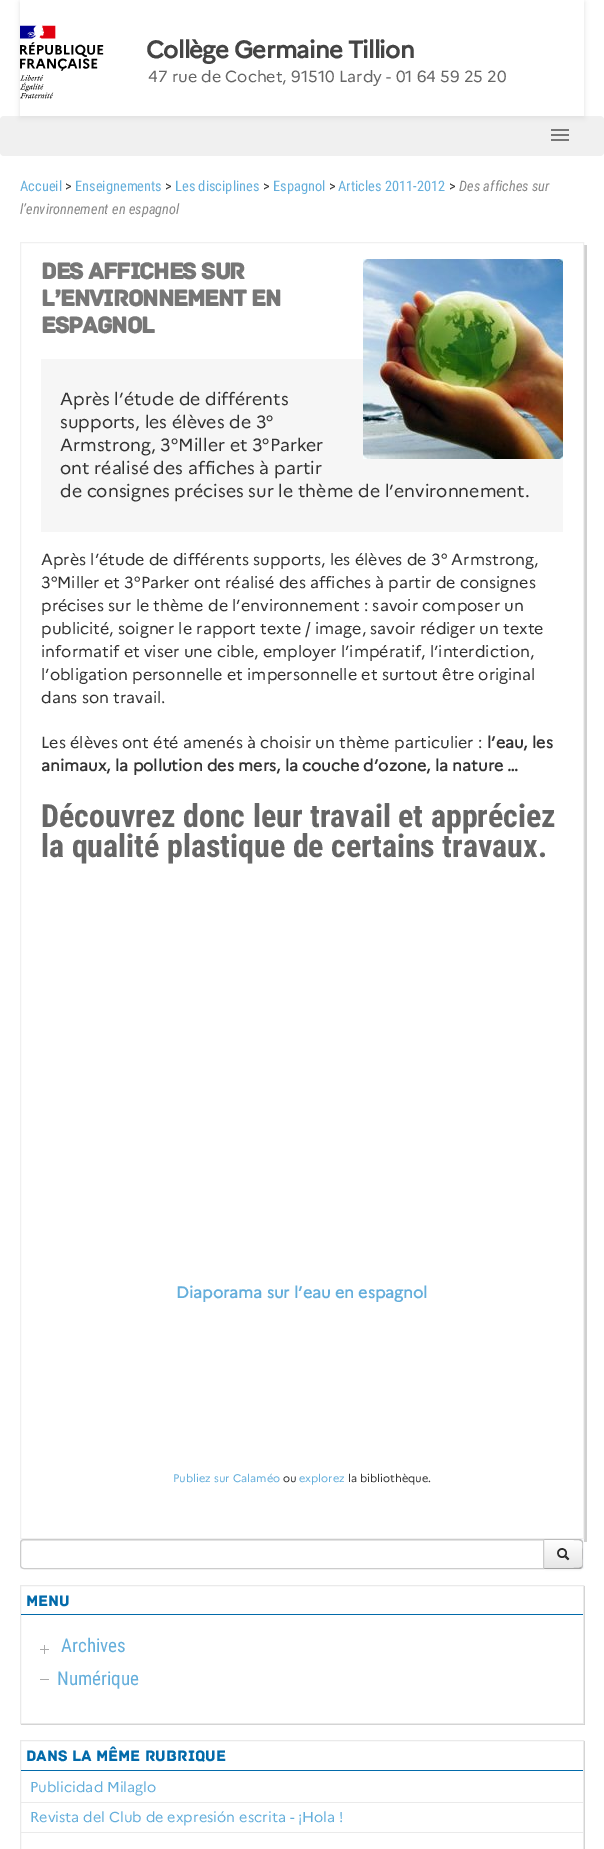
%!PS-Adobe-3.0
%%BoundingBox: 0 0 604 1849
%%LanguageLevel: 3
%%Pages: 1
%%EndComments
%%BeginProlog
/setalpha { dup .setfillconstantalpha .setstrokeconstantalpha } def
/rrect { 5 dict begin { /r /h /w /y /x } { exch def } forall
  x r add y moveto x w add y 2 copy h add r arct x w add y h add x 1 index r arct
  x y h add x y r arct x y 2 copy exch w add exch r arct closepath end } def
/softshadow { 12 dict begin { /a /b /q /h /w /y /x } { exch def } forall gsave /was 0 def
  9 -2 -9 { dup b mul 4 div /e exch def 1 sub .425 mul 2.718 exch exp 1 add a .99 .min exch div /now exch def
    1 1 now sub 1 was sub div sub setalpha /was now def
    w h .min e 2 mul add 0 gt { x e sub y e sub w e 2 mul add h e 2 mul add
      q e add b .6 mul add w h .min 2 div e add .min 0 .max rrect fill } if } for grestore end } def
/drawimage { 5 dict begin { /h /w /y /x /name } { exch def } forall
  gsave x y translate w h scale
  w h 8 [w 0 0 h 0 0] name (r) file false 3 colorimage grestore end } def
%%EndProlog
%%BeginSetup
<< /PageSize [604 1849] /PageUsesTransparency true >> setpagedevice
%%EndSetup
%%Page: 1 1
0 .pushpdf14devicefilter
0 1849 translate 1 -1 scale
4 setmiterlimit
1 setgray
0 0 604 1849 rectfill
0.941 setgray
0 116 604 40 4 rrect fill
gsave
newpath 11 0 moveto 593 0 lineto 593 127 lineto 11 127 lineto closepath 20 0 moveto 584 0 lineto 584 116 lineto 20 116 lineto closepath eoclip newpath
0.878 setgray
20 2 564 116 0 2.5 1 softshadow
grestore
(images/1.raw) 20 25 84 74 drawimage
0.467 setgray
551 129 18 2 rectfill
551 134 18 2 rectfill
551 139 18 2 rectfill
0.816 setgray
newpath 23 1539 moveto 23 1542 lineto 587 1542 lineto 587 245 lineto 584 245 lineto 584 1539 lineto closepath fill
0.941 setgray
20.5 242.5 563 1296 rectstroke
0.965 setgray
41 359 522 173 rectfill
(images/2.raw) 363 259 200 200 drawimage
0.976 0.98 0.992 setrgbcolor
20 1539 564 30 rectfill
0 setgray
543 1540 40 30 4 1 0.05 softshadow
gsave
newpath 543 1539 moveto 579 1539 lineto 581 1539 583 1541 583 1543 curveto 583 1565 lineto 583 1567 581 1569 579 1569 curveto 543 1569 lineto closepath clip newpath
gsave newpath 544 1540 moveto 583 1540 lineto 583 1568 lineto 544 1568 lineto closepath clip newpath
<< /ShadingType 2 /ColorSpace /DeviceRGB /Coords [563 1540 563 1568] /Extend [true true] /Function << /FunctionType 2 /Domain [0 1] /C0 [1 1 1] /C1 [0.902 0.902 0.902] /N 1 >> >> shfill grestore
grestore
0.733 setgray
newpath 543 1539 moveto 544 1540 lineto 573 1540 lineto 577.5 1540 580 1540 581 1541 curveto 582 1540 lineto 581 1539.5 580 1539 579 1539 curveto closepath fill
newpath 583 1565 moveto 583 1543 lineto 583 1542 582.5 1541 582 1540 curveto 581 1541 lineto 582 1541.5 582 1542.5 582.5 1543 curveto 582 1554 lineto 582.5 1565 lineto 582 1565.5 582 1566.5 581 1567 curveto 582 1568 lineto 582.5 1567 583 1566 583 1565 curveto closepath fill
0.635 setgray
newpath 579 1569 moveto 580 1569 581 1568.5 582 1568 curveto 581 1567 lineto 580 1568 577.5 1568 573 1568 curveto 544 1568 lineto 543 1569 lineto closepath fill
1 setgray
newpath 24 1539 moveto 544 1539 lineto 544 1569 lineto 24 1569 lineto 22 1569 20 1567 20 1565 curveto 20 1543 lineto 20 1541 22 1539 24 1539 curveto closepath fill
0.925 setgray
newpath 24 1541 moveto 543 1541 lineto 543 1540 lineto 24 1540 lineto 22 1540 21 1542 21 1544 curveto 21 1542 22 1541 24 1541 curveto closepath fill
0.8 setgray
newpath 24 1539.5 moveto 543.5 1539.5 lineto 543.5 1568.5 lineto 24 1568.5 lineto 22 1568.5 20.5 1567 20.5 1565 curveto 20.5 1543 lineto 20.5 1541 22 1539.5 24 1539.5 curveto closepath stroke
(images/3.raw) 557 1548 13 13 drawimage
newpath 21 1724 moveto 21 1725 lineto 585 1725 lineto 585 1586 lineto 584 1586 lineto 584 1724 lineto closepath fill
0.918 setgray
20.5 1585.5 563 138 rectstroke
0.008 0.416 0.667 setrgbcolor
21 1614 562 1 rectfill
(images/4.raw) 40 1645 9 9 drawimage
0.667 setgray
40 1679 9 1 rectfill
0.8 setgray
newpath 21 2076 moveto 21 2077 lineto 585 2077 lineto 585 1741 lineto 584 1741 lineto 584 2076 lineto closepath fill
0.918 setgray
20.5 1740.5 563 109 rectstroke
0.008 0.416 0.667 setrgbcolor
21 1770 562 1 rectfill
0.918 setgray
21 1802 562 1 rectfill
21 1832 562 1 rectfill
/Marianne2-Bold [24 0 0 -24 0 0] selectfont
0.267 setgray
146 58 moveto -0.75 0 (Collège Germaine Tillion) ashow
/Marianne-Regular [16 0 0 -16 0 0] selectfont
0.4 setgray
148 82 moveto (47 rue de Cochet, 91510 Lardy - 01 64 59 25 20) show
/RobotoCondensed-Regular [14.4 0 0 -14.4 0 0] selectfont
0.392 0.682 0.859 setrgbcolor
20 191 moveto (Accueil) show
0.2 setgray
65 191 moveto (>) show
0.392 0.682 0.859 setrgbcolor
75 191 moveto (Enseignements) show
0.2 setgray
165 191 moveto (>) show
0.392 0.682 0.859 setrgbcolor
175 191 moveto (Les disciplines) show
0.2 setgray
263 191 moveto (>) show
0.392 0.682 0.859 setrgbcolor
273 191 moveto (Espagnol) show
0.2 setgray
329 191 moveto (>) show
0.392 0.682 0.859 setrgbcolor
338 191 moveto (Articles 2011-2012) show
0.2 setgray
449 191 moveto (>) show
/RobotoCondensed-Italic [14.4 0 0 -14.4 0 0] selectfont
0.533 setgray
459 191 moveto (Des affiches sur) show
20 214 moveto (l’environnement en espagnol) show
/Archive-Bold [24 0 0 -24 0 0] selectfont
0.467 setgray
41 279 moveto -1.1 0 (Des affiches sur) ashow
41 306 moveto -1.1 0 (l’environnement en) ashow
41 333 moveto -1.1 0 (espagnol) ashow
/Marianne-Regular [17.6 0 0 -17.6 0 0] selectfont
0.2 setgray
60 405 moveto (Après l’étude de différents) show
60 428 moveto (supports, les élèves de 3°) show
60 451 moveto (Armstrong, 3°Miller et 3°Parker) show
60 474 moveto (ont réalisé des affiches à partir) show
60 497 moveto (de consignes précises sur le thème de l’environnement.) show
/Marianne-Regular [16 0 0 -16 0 0] selectfont
41 565 moveto (Après l’étude de différents supports, les élèves de 3° Armstrong,) show
41 588 moveto (3°Miller et 3°Parker ont réalisé des affiches à partir de consignes) show
41 611 moveto (précises sur le thème de l’environnement : savoir composer un) show
41 634 moveto (publicité, soigner le rapport texte / image, savoir rédiger un texte) show
41 657 moveto (informatif et viser une cible, employer l’impératif, l’interdiction,) show
41 680 moveto (l’obligation personnelle et impersonnelle et surtout être original) show
41 703 moveto (dans son travail.) show
41 748 moveto (Les élèves ont été amenés à choisir un thème particulier :) show
/Marianne-Bold [16 0 0 -16 0 0] selectfont
487 748 moveto (l’eau, les) show
41 771 moveto (animaux, la pollution des mers, la couche d’ozone, la nature …) show
/RobotoCondensed-Bold [32 0 0 -32 0 0] selectfont
0.4 setgray
41 827 moveto (Découvrez donc leur travail et appréciez) show
41 857 moveto (la qualité plastique de certains travaux.) show
/Marianne-Bold [16 0 0 -16 0 0] selectfont
0.392 0.682 0.859 setrgbcolor
176 1298 moveto (Diaporama sur l’eau en espagnol) show
/Marianne-Regular [11 0 0 -11 0 0] selectfont
173 1482 moveto (Publiez sur Calaméo) show
0.2 setgray
283 1482 moveto (ou) show
0.392 0.682 0.859 setrgbcolor
299 1482 moveto (explorez) show
0.2 setgray
348 1482 moveto (la bibliothèque.) show
/Archive-Regular [16 0 0 -16 0 0] selectfont
0.008 0.416 0.667 setrgbcolor
26 1606 moveto (Menu) show
/RobotoCondensed-Regular [19 0 0 -19 0 0] selectfont
0.392 0.682 0.859 setrgbcolor
61 1652 moveto (Archives) show
57 1685 moveto (Numérique) show
/Archive-Regular [16 0 0 -16 0 0] selectfont
0.008 0.416 0.667 setrgbcolor
26 1761 moveto (Dans la même rubrique) show
/Marianne-Regular [14.4 0 0 -14.4 0 0] selectfont
0.392 0.682 0.859 setrgbcolor
30 1792 moveto (Publicidad Milaglo) show
30 1822 moveto (Revista del Club de expresión escrita - ¡Hola !) show
.poppdf14devicefilter showpage
%%EOF
